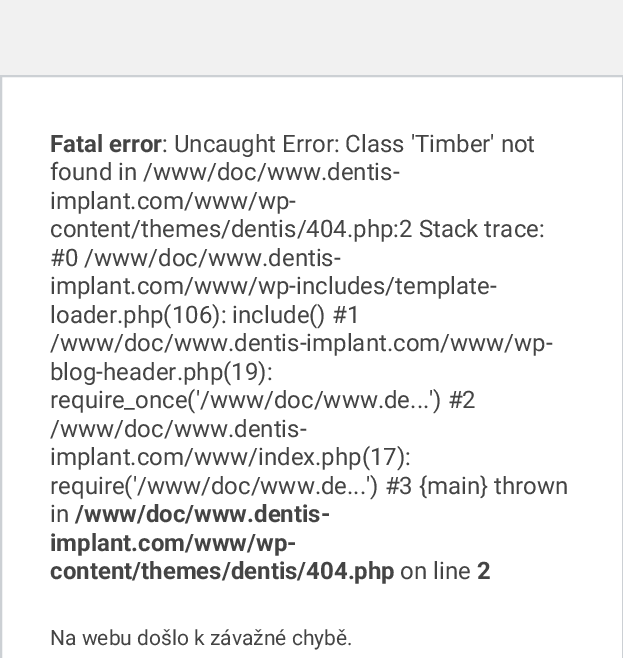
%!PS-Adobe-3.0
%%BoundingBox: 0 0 623 658
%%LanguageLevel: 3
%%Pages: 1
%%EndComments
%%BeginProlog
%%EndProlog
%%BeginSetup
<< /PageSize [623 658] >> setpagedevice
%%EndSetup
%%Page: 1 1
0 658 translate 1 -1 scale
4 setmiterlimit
0.945 setgray
0 0 623 658 rectfill
1 setgray
newpath 1 76 moveto 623 76 lineto 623 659 lineto 1 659 lineto closepath gsave fill grestore
0.8 0.816 0.831 setrgbcolor
2 setlinewidth
stroke
/Roboto-Bold [24 0 0 -24 0 0] selectfont
0.267 setgray
50 152 moveto (Fatal error) show
/Roboto-Regular [24 0 0 -24 0 0] selectfont
162 152 moveto (: Uncaught Error: Class 'Timber' not) show
50 180 moveto (found in /www/doc/www.dentis-) show
50 209 moveto (implant.com/www/wp-) show
50 237 moveto (content/themes/dentis/404.php:2 Stack trace:) show
50 266 moveto (#0 /www/doc/www.dentis-) show
50 294 moveto (implant.com/www/wp-includes/template-) show
50 323 moveto (loader.php\(106\): include\(\) #1) show
50 351 moveto (/www/doc/www.dentis-implant.com/www/wp-) show
50 380 moveto (blog-header.php\(19\):) show
50 408 moveto (require_once\('/www/doc/www.de...'\) #2) show
50 437 moveto (/www/doc/www.dentis-) show
50 465 moveto (implant.com/www/index.php\(17\):) show
50 494 moveto (require\('/www/doc/www.de...'\) #3 {main} thrown) show
50 522 moveto (in) show
/Roboto-Bold [24 0 0 -24 0 0] selectfont
75 522 moveto (/www/doc/www.dentis-) show
50 551 moveto (implant.com/www/wp-) show
50 579 moveto (content/themes/dentis/404.php) show
/Roboto-Regular [24 0 0 -24 0 0] selectfont
400 579 moveto (on line) show
/Roboto-Bold [24 0 0 -24 0 0] selectfont
477 579 moveto (2) show
/Roboto-Regular [21 0 0 -21 0 0] selectfont
50 645 moveto (Na webu došlo k závažné chybě.) show
showpage
%%EOF
